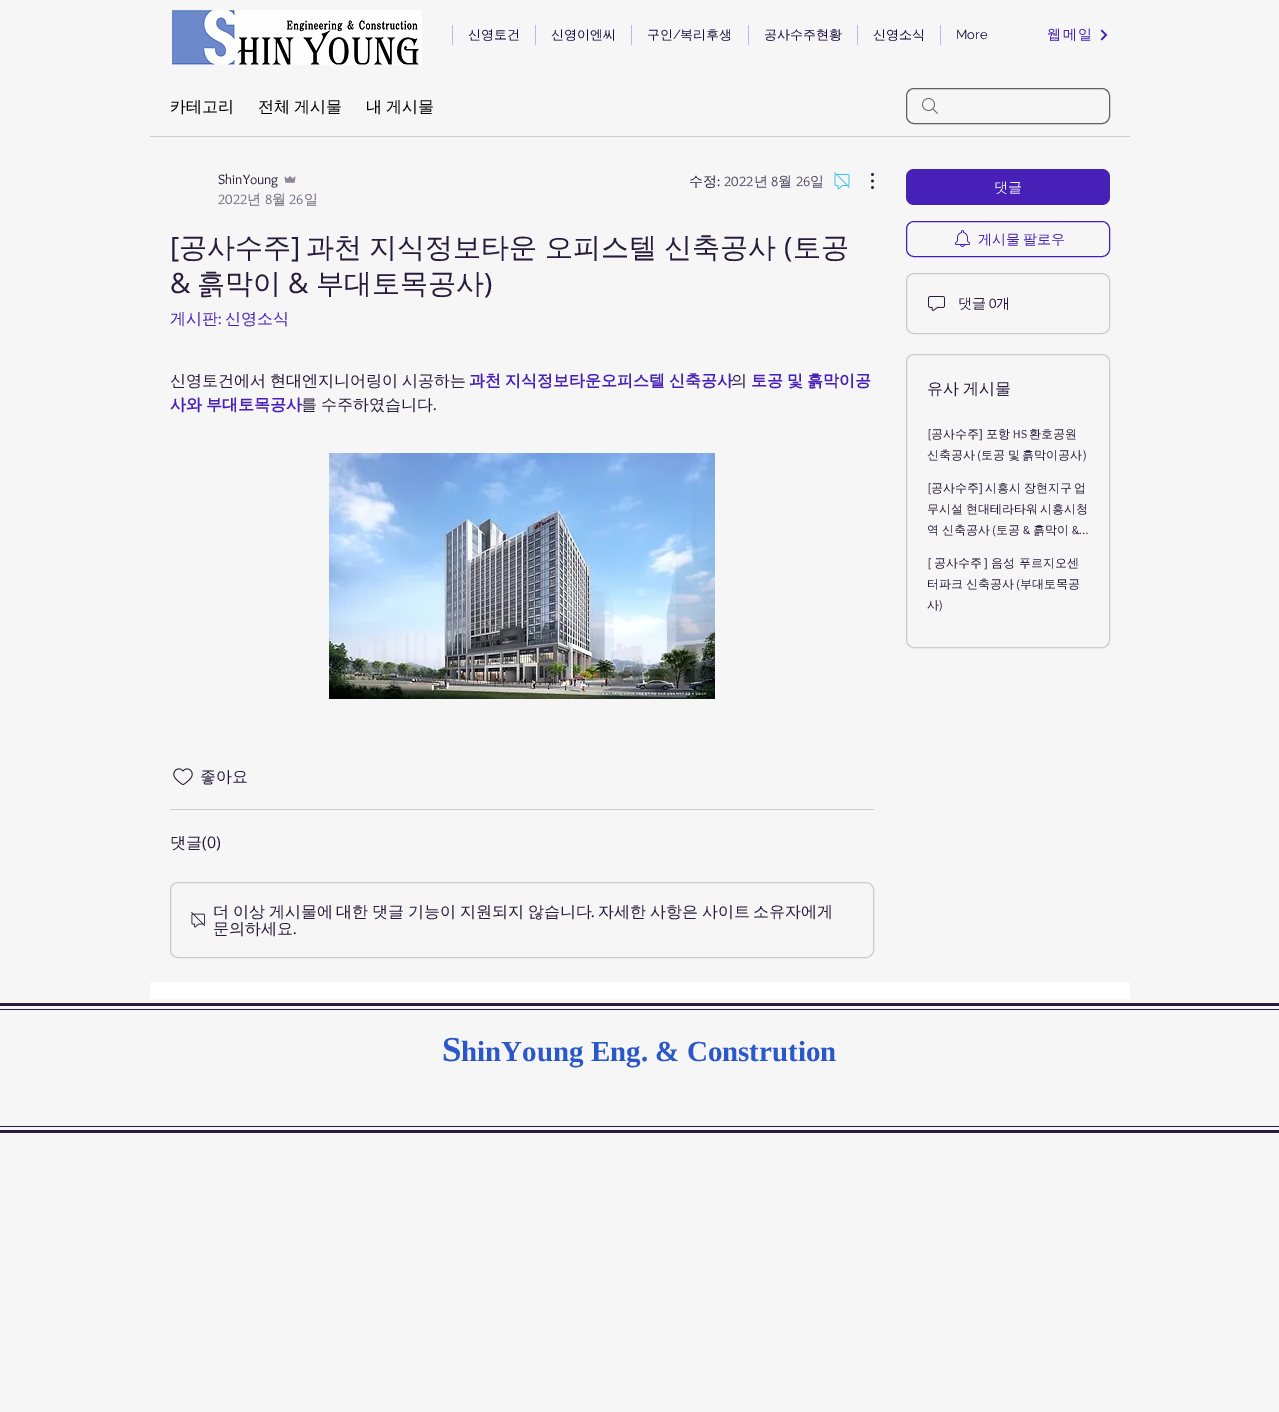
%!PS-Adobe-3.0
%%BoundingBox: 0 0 1279 1412
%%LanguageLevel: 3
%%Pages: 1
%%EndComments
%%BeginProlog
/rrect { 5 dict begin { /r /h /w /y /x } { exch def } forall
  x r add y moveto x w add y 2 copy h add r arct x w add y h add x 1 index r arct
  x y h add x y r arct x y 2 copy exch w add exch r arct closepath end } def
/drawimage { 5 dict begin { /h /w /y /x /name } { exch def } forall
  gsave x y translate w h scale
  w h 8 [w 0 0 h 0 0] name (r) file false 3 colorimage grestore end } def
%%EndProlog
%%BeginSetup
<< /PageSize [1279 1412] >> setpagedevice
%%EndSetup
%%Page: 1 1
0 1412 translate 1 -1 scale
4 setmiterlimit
0.965 setgray
0 0 1279 1412 rectfill
(images/1.raw) 172 10 250 55 drawimage
0.761 0.718 0.886 setrgbcolor
452 25 1 20 rectfill
535 25 1 20 rectfill
631 25 1 20 rectfill
748 25 1 20 rectfill
857 25 1 20 rectfill
940 25 1 20 rectfill
(images/2.raw) 1100 29 8 12 drawimage
0.804 0.792 0.816 setrgbcolor
150 136 980 1 rectfill
(images/3.raw) 922 98 16 16 drawimage
0.384 setgray
906.5 88.5 203 35 7.5 rrect stroke
(images/4.raw) 284 176 12 7 drawimage
(images/5.raw) 834 172 16 18 drawimage
(images/6.raw) 871 173 3 16 drawimage
(images/7.raw) 329 453 386 246 drawimage
(images/8.raw) 173 768 20 18 drawimage
0.804 0.792 0.816 setrgbcolor
170 809 704 1 rectfill
170.5 882.5 703 75 7.5 rrect stroke
(images/9.raw) 191 912 14 16 drawimage
0.278 0.125 0.718 setrgbcolor
906 169 204 36 8 rrect fill
906.5 221.5 203 35 7.5 rrect stroke
(images/10.raw) 955 230 15 17 drawimage
0.804 0.792 0.816 setrgbcolor
906.5 273.5 203 60 7.5 rrect stroke
(images/11.raw) 928 296 17 15 drawimage
906.5 354.5 203 293 7.5 rrect stroke
1 setgray
150 982 980 17 rectfill
0.157 0.102 0.224 setrgbcolor
0 1003 1279 3 rectfill
0 1130 1279 3 rectfill
0 1009 1279 1 rectfill
0 1126 1279 1 rectfill
/WenQuanYiZenHei-Medium [13 0 0 -13 0 0] selectfont
0.094 0.043 0.239 setrgbcolor
468 39 moveto (신영토건) show
551 39 moveto (신영이엔씨) show
647 39 moveto (구인) show
/Raleway-Regular [13 0 0 -13 0 0] selectfont
673 39 moveto (/) show
/WenQuanYiZenHei-Medium [13 0 0 -13 0 0] selectfont
680 39 moveto (복리후생) show
764 39 moveto (공사수주현황) show
873 39 moveto (신영소식) show
/Raleway-Regular [13 0 0 -13 0 0] selectfont
956 39 moveto (More) show
/WenQuanYiZenHei-Medium [14 0 0 -14 0 0] selectfont
0.278 0.125 0.718 setrgbcolor
1047 39 moveto 1.5 0 (웹메일) ashow
/WenQuanYiZenHei-Medium [16 0 0 -16 0 0] selectfont
0 setgray
170 112 moveto (카테고리) show
258 112 moveto -1 0 32 (전체 게시물) widthshow
366 112 moveto -1 0 32 (내 게시물) widthshow
/Overlock-Regular [14 0 0 -14 0 0] selectfont
0.157 0.102 0.224 setrgbcolor
218 184 moveto (ShinYoung) show
0.447 0.412 0.49 setrgbcolor
218 204 moveto (2022) show
/WenQuanYiZenHei-Medium [14 0 0 -14 0 0] selectfont
247 204 moveto (년) show
/Overlock-Regular [14 0 0 -14 0 0] selectfont
265 204 moveto (8) show
/WenQuanYiZenHei-Medium [14 0 0 -14 0 0] selectfont
272 204 moveto (월) show
/Overlock-Regular [14 0 0 -14 0 0] selectfont
289 204 moveto (26) show
/WenQuanYiZenHei-Medium [14 0 0 -14 0 0] selectfont
304 204 moveto (일) show
0.157 0.102 0.224 setrgbcolor
689 186 moveto (수정) show
/Overlock-Regular [14 0 0 -14 0 0] selectfont
717 186 moveto (:) show
0.318 0.275 0.373 setrgbcolor
724 186 moveto (2022) show
/WenQuanYiZenHei-Medium [14 0 0 -14 0 0] selectfont
754 186 moveto (년) show
/Overlock-Regular [14 0 0 -14 0 0] selectfont
771 186 moveto (8) show
/WenQuanYiZenHei-Medium [14 0 0 -14 0 0] selectfont
778 186 moveto (월) show
/Overlock-Regular [14 0 0 -14 0 0] selectfont
796 186 moveto (26) show
/WenQuanYiZenHei-Medium [14 0 0 -14 0 0] selectfont
810 186 moveto (일) show
/OpenSans-Regular [28 0 0 -28 0 0] selectfont
0.157 0.102 0.224 setrgbcolor
170 257 moveto ([) show
/WenQuanYiZenHei-Medium [28 0 0 -28 0 0] selectfont
179 257 moveto (공사수주) show
/OpenSans-Regular [28 0 0 -28 0 0] selectfont
291 257 moveto (]) show
/WenQuanYiZenHei-Medium [28 0 0 -28 0 0] selectfont
306 257 moveto -1 0 32 (과천 지식정보타운 오피스텔 신축공사) widthshow
/OpenSans-Regular [28 0 0 -28 0 0] selectfont
784 257 moveto (\() show
/WenQuanYiZenHei-Medium [28 0 0 -28 0 0] selectfont
793 257 moveto (토공) show
/OpenSans-Regular [28 0 0 -28 0 0] selectfont
170 293 moveto (&) show
/WenQuanYiZenHei-Medium [28 0 0 -28 0 0] selectfont
197 293 moveto (흙막이) show
/OpenSans-Regular [28 0 0 -28 0 0] selectfont
288 293 moveto (&) show
/WenQuanYiZenHei-Medium [28 0 0 -28 0 0] selectfont
316 293 moveto (부대토목공사) show
/OpenSans-Regular [28 0 0 -28 0 0] selectfont
484 293 moveto (\)) show
/WenQuanYiZenHei-Medium [16 0 0 -16 0 0] selectfont
0.278 0.125 0.718 setrgbcolor
170 324 moveto (게시판) show
/Overlock-Regular [16 0 0 -16 0 0] selectfont
218 324 moveto (:) show
/WenQuanYiZenHei-Medium [16 0 0 -16 0 0] selectfont
225 324 moveto (신영소식) show
0.157 0.102 0.224 setrgbcolor
170 386 moveto -1 0 32 (신영토건에서 현대엔지니어링이 시공하는) widthshow
/WenQuanYiZenHei-Bold [16 0 0 -16 0 0] selectfont
0.278 0.125 0.718 setrgbcolor
469 386 moveto -1 0 32 (과천 지식정보타운오피스텔 신축공사) widthshow
/WenQuanYiZenHei-Medium [16 0 0 -16 0 0] selectfont
0.157 0.102 0.224 setrgbcolor
731 386 moveto (의) show
/WenQuanYiZenHei-Bold [16 0 0 -16 0 0] selectfont
0.278 0.125 0.718 setrgbcolor
751 386 moveto -1 0 32 (토공 및 흙막이공) widthshow
170 410 moveto -1 0 32 (사와 부대토목공사) widthshow
/WenQuanYiZenHei-Medium [16 0 0 -16 0 0] selectfont
0.157 0.102 0.224 setrgbcolor
301 410 moveto -1 0 32 (를 수주하였습니다) widthshow
/Overlock-Regular [16 0 0 -16 0 0] selectfont
433 410 moveto (.) show
/WenQuanYiZenHei-Medium [16 0 0 -16 0 0] selectfont
200 782 moveto (좋아요) show
170 848 moveto (댓글) show
/OpenSans-Regular [16 0 0 -16 0 0] selectfont
202 848 moveto (\(0\)) show
/WenQuanYiZenHei-Medium [16 0 0 -16 0 0] selectfont
213 917 moveto -1 0 32 (더 이상 게시물에 대한 댓글 기능이 지원되지 않습니다) widthshow
/Overlock-Regular [16 0 0 -16 0 0] selectfont
591 917 moveto (.) show
/WenQuanYiZenHei-Medium [16 0 0 -16 0 0] selectfont
598 917 moveto -1 0 32 (자세한 사항은 사이트 소유자에게) widthshow
213 934 moveto (문의하세요) show
/Overlock-Regular [16 0 0 -16 0 0] selectfont
293 934 moveto (.) show
/WenQuanYiZenHei-Medium [14 0 0 -14 0 0] selectfont
0.965 setgray
994 192 moveto (댓글) show
0.278 0.125 0.718 setrgbcolor
978 244 moveto -1 0 32 (게시물 팔로우) widthshow
0.157 0.102 0.224 setrgbcolor
958 308 moveto (댓글) show
/Overlock-Regular [14 0 0 -14 0 0] selectfont
989 308 moveto (0) show
/WenQuanYiZenHei-Medium [14 0 0 -14 0 0] selectfont
996 308 moveto (개) show
/WenQuanYiZenHei-Medium [16 0 0 -16 0 0] selectfont
927 394 moveto -1 0 32 (유사 게시물) widthshow
/Overlock-Regular [12 0 0 -12 0 0] selectfont
927 438 moveto ([) show
/WenQuanYiZenHei-Medium [12 0 0 -12 0 0] selectfont
931 438 moveto (공사수주) show
/Overlock-Regular [12 0 0 -12 0 0] selectfont
979 438 moveto (]) show
/WenQuanYiZenHei-Medium [12 0 0 -12 0 0] selectfont
986 438 moveto (포항) show
/Overlock-Regular [12 0 0 -12 0 0] selectfont
1013 438 moveto (HS) show
/WenQuanYiZenHei-Medium [12 0 0 -12 0 0] selectfont
1029 438 moveto (환호공원) show
927 459 moveto (신축공사) show
/Overlock-Regular [12 0 0 -12 0 0] selectfont
977 459 moveto (\() show
/WenQuanYiZenHei-Medium [12 0 0 -12 0 0] selectfont
981 459 moveto -1 0 32 (토공 및 흙막이공사) widthshow
/Overlock-Regular [12 0 0 -12 0 0] selectfont
1083 459 moveto (\)) show
927 492 moveto ([) show
/WenQuanYiZenHei-Medium [12 0 0 -12 0 0] selectfont
931 492 moveto (공사수주) show
/Overlock-Regular [12 0 0 -12 0 0] selectfont
979 492 moveto (]) show
/WenQuanYiZenHei-Medium [12 0 0 -12 0 0] selectfont
985 492 moveto -1 0 32 (시흥시 장현지구 업) widthshow
927 513 moveto -1 0 32 (무시설 현대테라타워 시흥시청) widthshow
927 534 moveto -1 0 32 (역 신축공사) widthshow
/Overlock-Regular [12 0 0 -12 0 0] selectfont
992 534 moveto (\() show
/WenQuanYiZenHei-Medium [12 0 0 -12 0 0] selectfont
996 534 moveto (토공) show
/Overlock-Regular [12 0 0 -12 0 0] selectfont
1023 534 moveto (&) show
/WenQuanYiZenHei-Medium [12 0 0 -12 0 0] selectfont
1033 534 moveto (흙막이) show
/Overlock-Regular [12 0 0 -12 0 0] selectfont
1072 534 moveto (&…) show
927 567 moveto ([) show
/WenQuanYiZenHei-Medium [12 0 0 -12 0 0] selectfont
934 567 moveto (공사수주) show
/Overlock-Regular [12 0 0 -12 0 0] selectfont
984 567 moveto (]) show
/WenQuanYiZenHei-Medium [12 0 0 -12 0 0] selectfont
991 567 moveto (음성 푸르지오센) show
927 588 moveto -1 0 32 (터파크 신축공사) widthshow
/Overlock-Regular [12 0 0 -12 0 0] selectfont
1016 588 moveto (\() show
/WenQuanYiZenHei-Medium [12 0 0 -12 0 0] selectfont
1020 588 moveto (부대토목공) show
927 609 moveto (사) show
/Overlock-Regular [12 0 0 -12 0 0] selectfont
939 609 moveto (\)) show
/LiberationSerif-Bold [35 0 0 -35 0 0] selectfont
0.165 0.341 0.792 setrgbcolor
442 1061 moveto (S) show
/LiberationSerif-Bold [29 0 0 -29 0 0] selectfont
461 1061 moveto (hinYoung Eng. & Constrution) show
showpage
%%EOF
